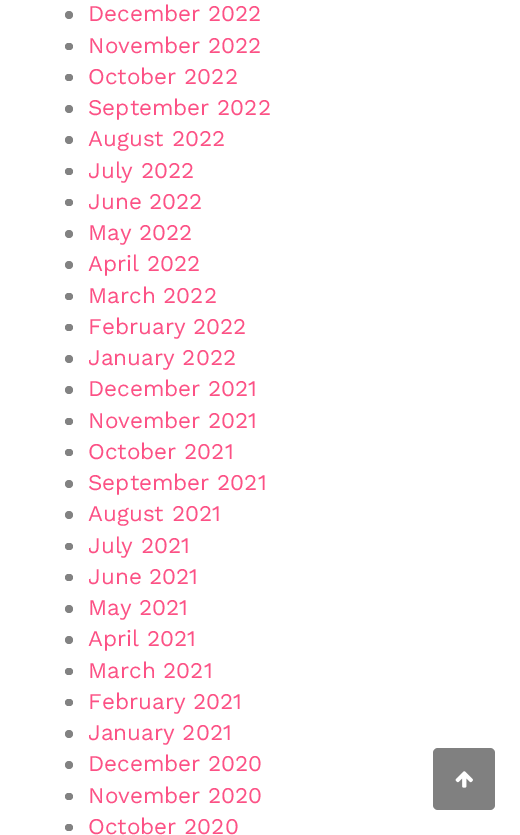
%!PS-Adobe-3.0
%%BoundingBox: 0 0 520 835
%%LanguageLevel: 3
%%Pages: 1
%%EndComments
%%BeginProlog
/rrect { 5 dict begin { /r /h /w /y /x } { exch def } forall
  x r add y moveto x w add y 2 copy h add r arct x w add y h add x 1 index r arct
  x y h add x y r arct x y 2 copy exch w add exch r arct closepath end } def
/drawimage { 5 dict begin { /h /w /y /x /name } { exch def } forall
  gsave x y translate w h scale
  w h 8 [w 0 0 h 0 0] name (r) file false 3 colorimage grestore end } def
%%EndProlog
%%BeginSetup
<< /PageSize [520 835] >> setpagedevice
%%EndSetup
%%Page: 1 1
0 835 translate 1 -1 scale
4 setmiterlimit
1 setgray
0 0 520 835 rectfill
0.51 setgray
newpath 69 15 4 0 360 arc closepath fill
65 43 8 7 3.5 rrect fill
65 74 8 7 3.5 rrect fill
newpath 69 109 4 0 360 arc closepath fill
newpath 69 140 4 0 360 arc closepath fill
65 168 8 7 3.5 rrect fill
65 199 8 7 3.5 rrect fill
newpath 69 234 4 0 360 arc closepath fill
newpath 69 265 4 0 360 arc closepath fill
65 293 8 7 3.5 rrect fill
65 324 8 7 3.5 rrect fill
newpath 69 359 4 0 360 arc closepath fill
newpath 69 390 4 0 360 arc closepath fill
65 418 8 7 3.5 rrect fill
65 449 8 7 3.5 rrect fill
newpath 69 484 4 0 360 arc closepath fill
newpath 69 515 4 0 360 arc closepath fill
65 543 8 7 3.5 rrect fill
65 574 8 7 3.5 rrect fill
newpath 69 609 4 0 360 arc closepath fill
newpath 69 640 4 0 360 arc closepath fill
65 668 8 7 3.5 rrect fill
65 699 8 7 3.5 rrect fill
newpath 69 734 4 0 360 arc closepath fill
newpath 69 765 4 0 360 arc closepath fill
65 793 8 7 3.5 rrect fill
65 824 8 7 3.5 rrect fill
0.502 setgray
433 748 62 62 5 rrect fill
(images/1.raw) 455 771 18 17 drawimage
/WorkSans-Regular [22.5 0 0 -22.5 0 0] selectfont
0.988 0.318 0.522 setrgbcolor
88 21 moveto (December 2022) show
88 53 moveto (November 2022) show
88 84 moveto (October 2022) show
88 115 moveto (September 2022) show
88 146 moveto (August 2022) show
88 178 moveto (July 2022) show
88 209 moveto (June 2022) show
88 240 moveto (May 2022) show
88 271 moveto (April 2022) show
88 303 moveto (March 2022) show
88 334 moveto (February 2022) show
88 365 moveto (January 2022) show
88 396 moveto (December 2021) show
88 428 moveto (November 2021) show
88 459 moveto (October 2021) show
88 490 moveto (September 2021) show
88 521 moveto (August 2021) show
88 553 moveto (July 2021) show
88 584 moveto (June 2021) show
88 615 moveto (May 2021) show
88 646 moveto (April 2021) show
88 678 moveto (March 2021) show
88 709 moveto (February 2021) show
88 740 moveto (January 2021) show
88 771 moveto (December 2020) show
88 803 moveto (November 2020) show
88 834 moveto (October 2020) show
showpage
%%EOF
